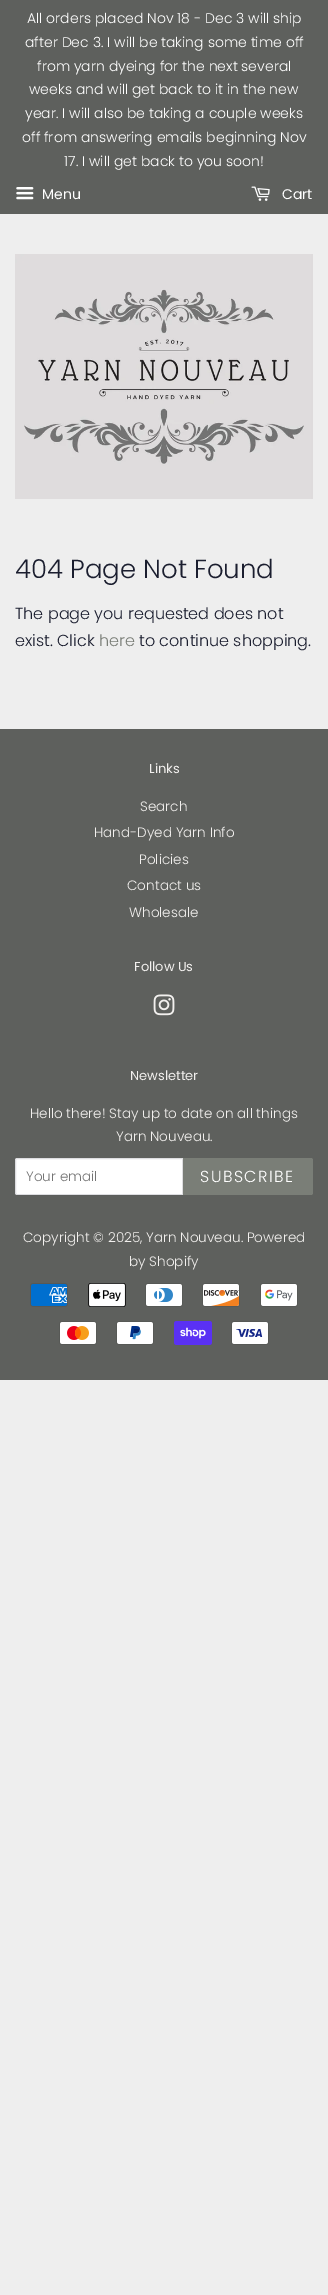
%!PS-Adobe-3.0
%%BoundingBox: 0 0 328 2295
%%LanguageLevel: 3
%%Pages: 1
%%EndComments
%%BeginProlog
/setalpha { dup .setfillconstantalpha .setstrokeconstantalpha } def
/drawimage { 5 dict begin { /h /w /y /x /name } { exch def } forall
  gsave x y translate w h scale
  w h 8 [w 0 0 h 0 0] name (r) file false 3 colorimage grestore end } def
%%EndProlog
%%BeginSetup
<< /PageSize [328 2295] /PageUsesTransparency true >> setpagedevice
%%EndSetup
%%Page: 1 1
0 .pushpdf14devicefilter
0 2295 translate 1 -1 scale
4 setmiterlimit
0.933 setgray
0 0 328 2295 rectfill
0.369 0.376 0.365 setrgbcolor
0 0 328 214 rectfill
(images/1.raw) 16 187 18 13 drawimage
(images/2.raw) 251 186 19 15 drawimage
(images/3.raw) 15 254 298 245 drawimage
0 729 328 651 rectfill
(images/4.raw) 153 994 22 22 drawimage
1 setgray
newpath 17 1158 moveto 183 1158 lineto 183 1195 lineto 17 1195 lineto 16 1195 15 1194 15 1193 curveto 15 1160 lineto 15 1159 16 1158 17 1158 curveto closepath fill
0.15 setalpha
0.106 0.118 0.184 setrgbcolor
newpath 17 1158.5 moveto 182.5 1158.5 lineto 182.5 1194.5 lineto 17 1194.5 lineto 16 1194.5 15.5 1194 15.5 1193 curveto 15.5 1160 lineto 15.5 1159 16 1158.5 17 1158.5 curveto closepath stroke
1 setalpha
0.478 0.494 0.467 setrgbcolor
newpath 183 1158 moveto 311 1158 lineto 312 1158 313 1159 313 1160 curveto 313 1193 lineto 313 1194 312 1195 311 1195 curveto 183 1195 lineto closepath fill
(images/5.raw) 30 1283 38 24 drawimage
(images/6.raw) 88 1283 38 24 drawimage
(images/7.raw) 145 1283 38 24 drawimage
(images/8.raw) 202 1283 38 24 drawimage
(images/9.raw) 260 1283 38 24 drawimage
(images/10.raw) 59 1321 38 24 drawimage
(images/11.raw) 116 1321 38 24 drawimage
(images/12.raw) 174 1321 38 24 drawimage
(images/13.raw) 231 1321 38 24 drawimage
/Poppins-Light [14 0 0 -14 0 0] selectfont
1 setgray
27 23 moveto (All orders placed Nov 18 - Dec 3 will ship) show
25 47 moveto (after Dec 3. I will be taking some time off) show
37 71 moveto (from yarn dyeing for the next several) show
29 94 moveto (weeks and will get back to it in the new) show
25 118 moveto (year. I will also be taking a couple weeks) show
22 142 moveto (off from answering emails beginning Nov) show
64 166 moveto (17. I will get back to you soon!) show
/Poppins-Regular [14 0 0 -14 0 0] selectfont
42 199 moveto (Menu) show
282 199 moveto (Cart) show
/Poppins-Light [26 0 0 -26 0 0] selectfont
0.106 0.118 0.184 setrgbcolor
15 578 moveto (404 Page Not Found) show
/Poppins-Light [16 0 0 -16 0 0] selectfont
15 619 moveto (The page you requested does not) show
15 646 moveto (exist. Click) show
0.478 0.494 0.467 setrgbcolor
99 646 moveto (here) show
0.106 0.118 0.184 setrgbcolor
139 646 moveto (to continue shopping.) show
/Poppins-Regular [13 0 0 -13 0 0] selectfont
0.949 0.941 0.933 setrgbcolor
149 773 moveto (Links) show
/Poppins-Light [13.6 0 0 -13.6 0 0] selectfont
140 811 moveto (Search) show
94 837 moveto (Hand-Dyed Yarn Info) show
139 864 moveto (Policies) show
127 890 moveto (Contact us) show
129 917 moveto (Wholesale) show
/Poppins-Regular [13 0 0 -13 0 0] selectfont
134 971 moveto (Follow Us) show
130 1080 moveto (Newsletter) show
/Poppins-Light [13.6 0 0 -13.6 0 0] selectfont
30 1118 moveto (Hello there! Stay up to date on all things) show
116 1141 moveto (Yarn Nouveau.) show
0.459 setgray
26 1181 moveto (Your email) show
/Poppins-Light [16 0 0 -16 0 0] selectfont
1 setgray
200 1182 moveto 1.5 0 (SUBSCRIBE) ashow
/Poppins-Light [13.6 0 0 -13.6 0 0] selectfont
0.949 0.941 0.933 setrgbcolor
23 1242 moveto (Copyright © 2025, Yarn Nouveau. Powered) show
129 1266 moveto (by Shopify) show
.poppdf14devicefilter showpage
%%EOF
